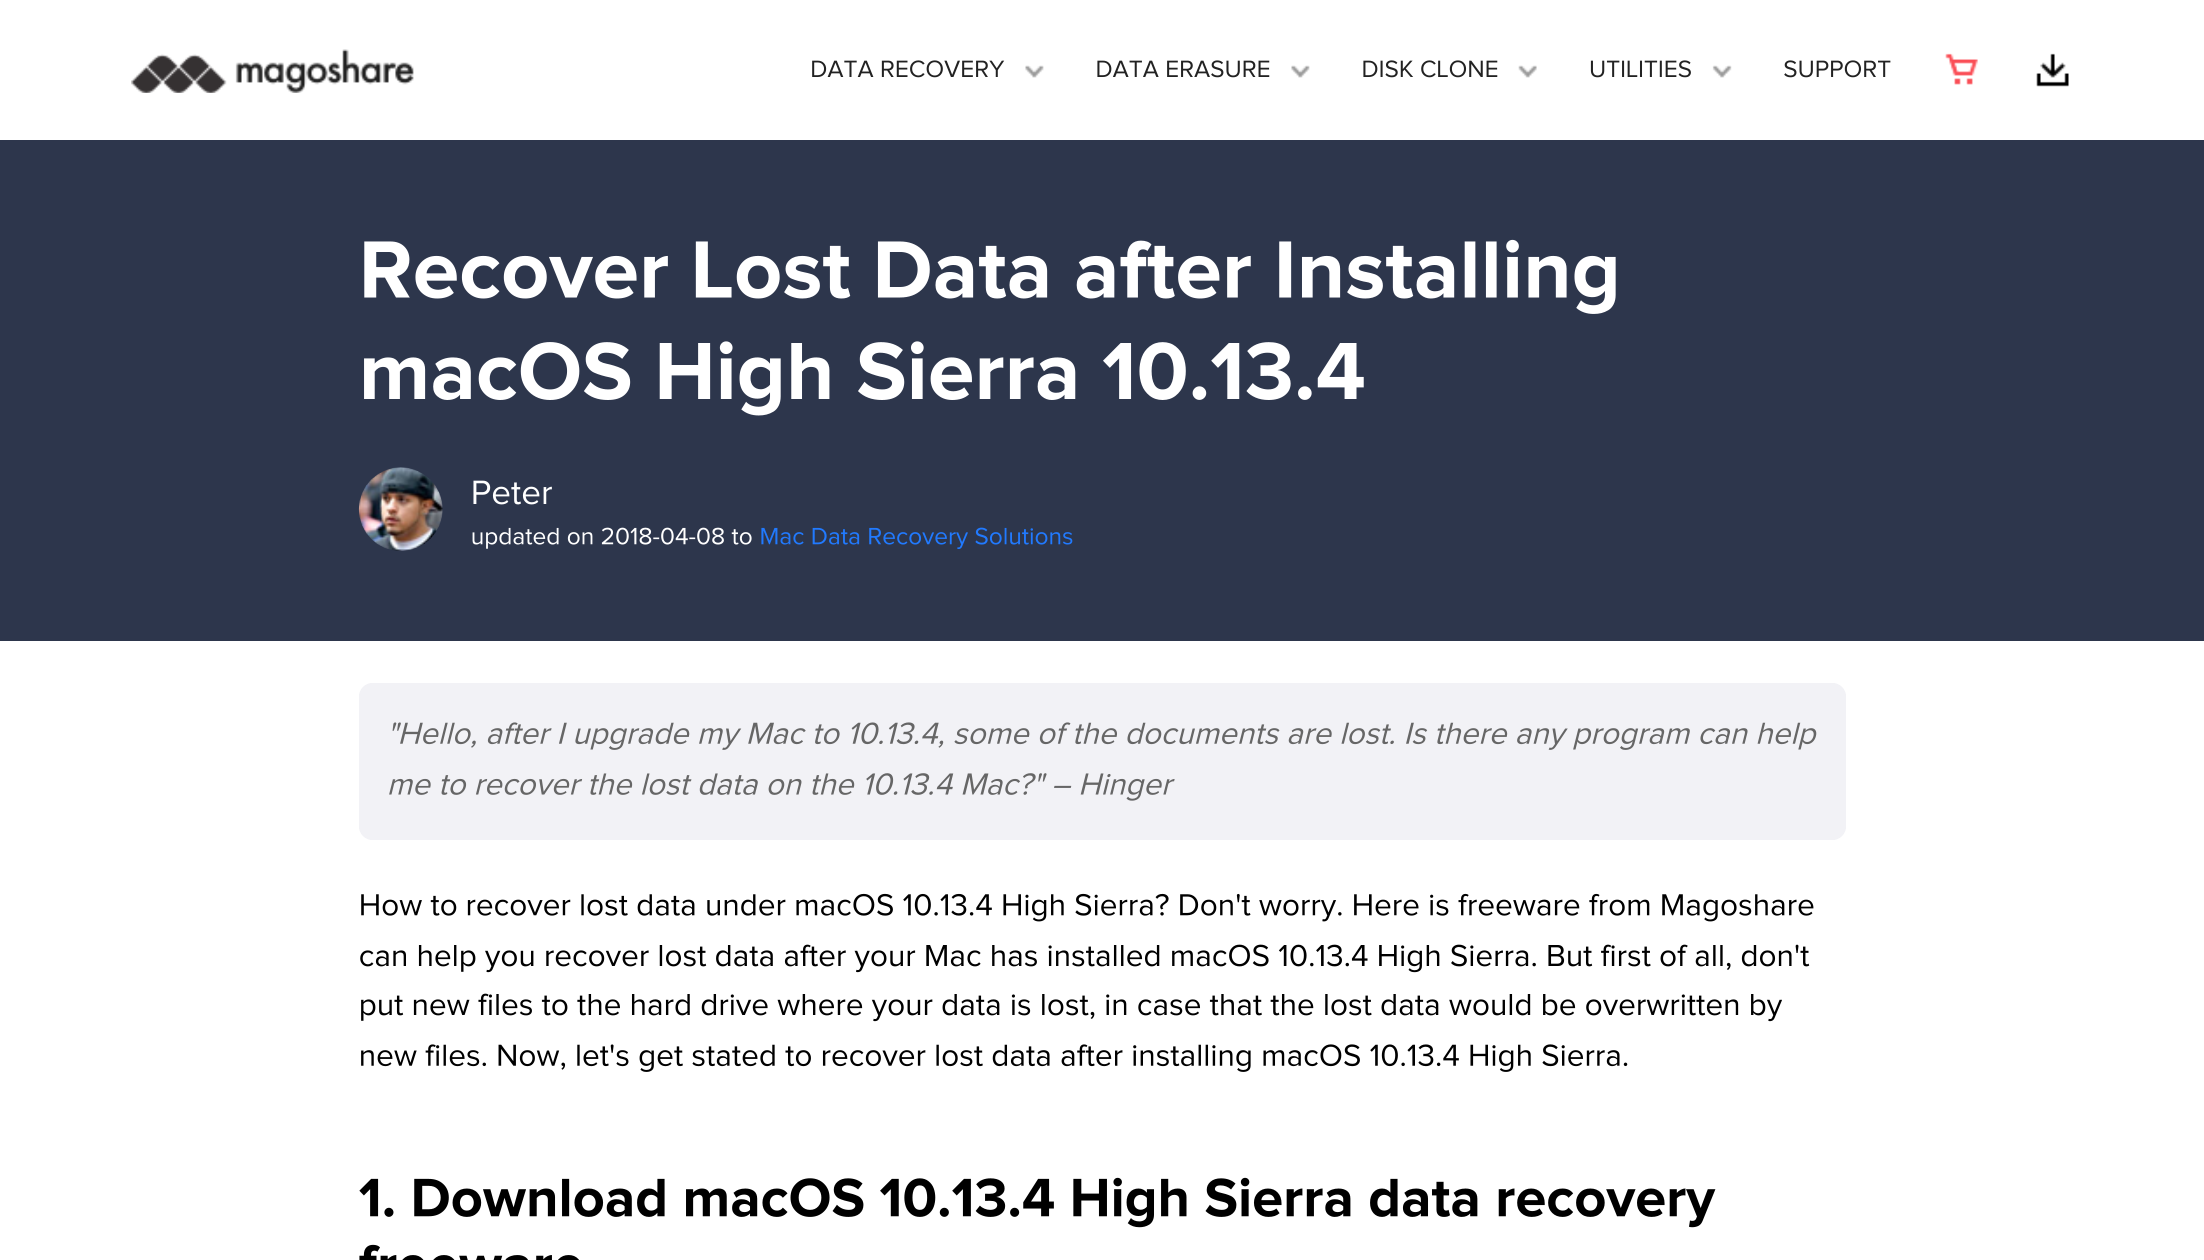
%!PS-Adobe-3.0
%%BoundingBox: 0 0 2204 1260
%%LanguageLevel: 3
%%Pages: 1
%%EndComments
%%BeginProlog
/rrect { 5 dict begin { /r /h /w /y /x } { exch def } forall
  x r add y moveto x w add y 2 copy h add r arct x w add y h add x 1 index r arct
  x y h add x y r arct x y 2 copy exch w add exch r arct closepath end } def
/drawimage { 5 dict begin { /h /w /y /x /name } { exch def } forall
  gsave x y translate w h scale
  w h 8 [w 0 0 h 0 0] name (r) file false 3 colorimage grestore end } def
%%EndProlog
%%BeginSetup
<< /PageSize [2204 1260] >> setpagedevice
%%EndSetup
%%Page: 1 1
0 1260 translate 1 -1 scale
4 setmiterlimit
1 setgray
0 0 2204 1260 rectfill
(images/1.raw) 131 49 283 44 drawimage
(images/2.raw) 812 60 193 18 drawimage
(images/3.raw) 1025 65 19 13 drawimage
(images/4.raw) 1097 60 173 18 drawimage
(images/3.raw) 1291 65 19 13 drawimage
(images/5.raw) 1363 60 135 18 drawimage
(images/6.raw) 1518 65 19 13 drawimage
(images/7.raw) 1590 60 101 18 drawimage
(images/8.raw) 1712 65 20 13 drawimage
(images/9.raw) 1784 60 107 18 drawimage
(images/10.raw) 1945 53 33 32 drawimage
(images/11.raw) 2036 53 33 34 drawimage
0.176 0.212 0.298 setrgbcolor
0 140 2204 501 rectfill
(images/12.raw) 364 239 1252 75 drawimage
(images/13.raw) 364 341 1000 75 drawimage
(images/14.raw) 358 467 85 84 drawimage
(images/15.raw) 473 480 79 25 drawimage
(images/16.raw) 472 527 280 22 drawimage
(images/17.raw) 761 527 312 22 drawimage
0.949 0.949 0.965 setrgbcolor
359 683 1487 157 14 rrect fill
(images/18.raw) 392 722 1425 28 drawimage
(images/19.raw) 389 773 786 28 drawimage
(images/20.raw) 361 894 96 22 drawimage
(images/21.raw) 467 893 686 29 drawimage
(images/22.raw) 1155 893 659 29 drawimage
(images/23.raw) 360 944 1450 29 drawimage
(images/24.raw) 361 993 1421 29 drawimage
(images/25.raw) 361 1044 1267 28 drawimage
(images/26.raw) 359 1177 1357 51 drawimage
(images/27.raw) 359 1244 220 16 drawimage
showpage
%%EOF
